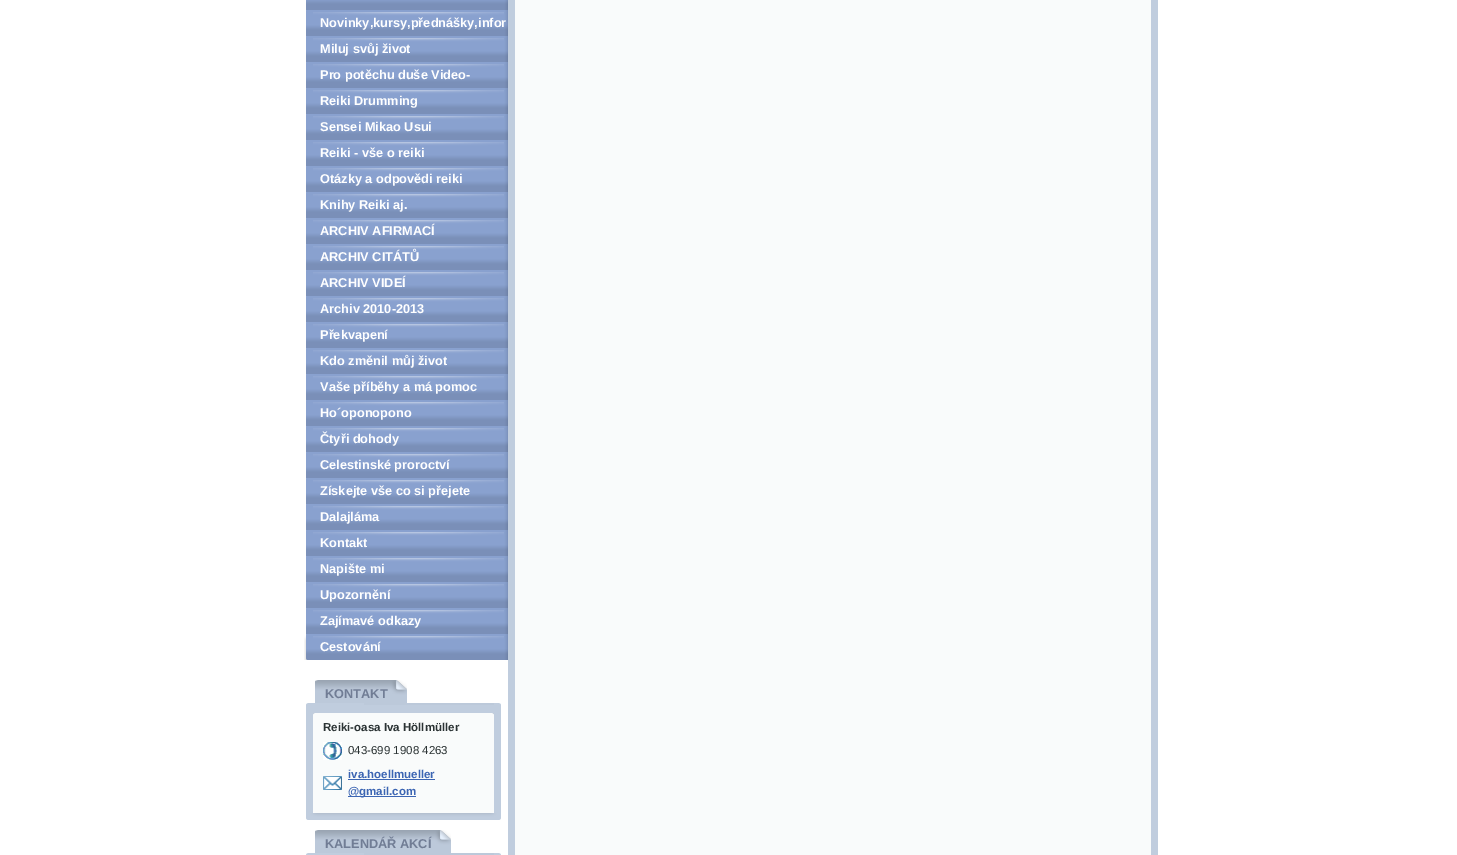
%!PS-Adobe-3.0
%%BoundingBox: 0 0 1457 855
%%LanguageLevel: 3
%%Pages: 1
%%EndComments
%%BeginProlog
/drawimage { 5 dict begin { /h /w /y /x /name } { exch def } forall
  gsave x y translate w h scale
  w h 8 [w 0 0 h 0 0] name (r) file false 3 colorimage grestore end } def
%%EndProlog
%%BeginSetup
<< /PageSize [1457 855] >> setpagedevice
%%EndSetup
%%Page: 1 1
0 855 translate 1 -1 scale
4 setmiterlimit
1 setgray
0 0 1457 855 rectfill
(images/1.raw) 306 0 202 10 drawimage
(images/2.raw) 306 10 202 26 drawimage
(images/2.raw) 306 36 202 26 drawimage
(images/2.raw) 306 62 202 26 drawimage
(images/2.raw) 306 88 202 26 drawimage
(images/2.raw) 306 114 202 26 drawimage
(images/2.raw) 306 140 202 26 drawimage
(images/2.raw) 306 166 202 26 drawimage
(images/2.raw) 306 192 202 26 drawimage
(images/2.raw) 306 218 202 26 drawimage
(images/2.raw) 306 244 202 26 drawimage
(images/2.raw) 306 270 202 26 drawimage
(images/2.raw) 306 296 202 26 drawimage
(images/2.raw) 306 322 202 26 drawimage
(images/2.raw) 306 348 202 26 drawimage
(images/2.raw) 306 374 202 26 drawimage
(images/2.raw) 306 400 202 26 drawimage
(images/2.raw) 306 426 202 26 drawimage
(images/2.raw) 306 452 202 26 drawimage
(images/2.raw) 306 478 202 26 drawimage
(images/2.raw) 306 504 202 26 drawimage
(images/2.raw) 306 530 202 26 drawimage
(images/2.raw) 306 556 202 26 drawimage
(images/2.raw) 306 582 202 26 drawimage
(images/2.raw) 306 608 202 26 drawimage
(images/3.raw) 304 634 204 26 drawimage
(images/4.raw) 315 680 92 23 drawimage
(images/5.raw) 315 680 3 2 drawimage
0.753 0.804 0.871 setrgbcolor
306 705 195 108 rectfill
(images/6.raw) 306 813 195 7 drawimage
(images/7.raw) 306 703 195 2 drawimage
0.976 0.984 0.984 setrgbcolor
313 715 181 98 rectfill
(images/8.raw) 313 713 181 2 drawimage
(images/9.raw) 323 742 19 18 drawimage
(images/10.raw) 323 776 19 14 drawimage
0.235 0.396 0.702 setrgbcolor
348 779 87 1 rectfill
348 796 50 1 rectfill
398 796 18 1 rectfill
(images/11.raw) 315 830 136 23 drawimage
(images/5.raw) 315 830 3 2 drawimage
(images/7.raw) 306 853 195 2 drawimage
0.753 0.804 0.871 setrgbcolor
508 0 650 855 rectfill
0.976 0.984 0.984 setrgbcolor
515 0 636 855 rectfill
/LiberationSans-Bold [12.75 0 0 -12.75 0 0] selectfont
1 setgray
320 27 moveto (Novinky,kursy,přednášky,infor) show
320 53 moveto (Miluj svůj život) show
320 79 moveto (Pro potěchu duše Video-) show
320 105 moveto (Reiki Drumming) show
320 131 moveto (Sensei Mikao Usui) show
320 157 moveto (Reiki - vše o reiki) show
320 183 moveto (Otázky a odpovědi reiki) show
320 209 moveto (Knihy Reiki aj.) show
320 235 moveto (ARCHIV AFIRMACÍ) show
320 261 moveto (ARCHIV CITÁTŮ) show
320 287 moveto (ARCHIV VIDEÍ) show
320 313 moveto (Archiv 2010-2013) show
320 339 moveto (Překvapení) show
320 365 moveto (Kdo změnil můj život) show
320 391 moveto (Vaše příběhy a má pomoc) show
320 417 moveto (Ho´oponopono) show
320 443 moveto (Čtyři dohody) show
320 469 moveto (Celestinské proroctví) show
320 495 moveto (Získejte vše co si přejete) show
320 521 moveto (Dalajláma) show
320 547 moveto (Kontakt) show
320 573 moveto (Napište mi) show
320 599 moveto (Upozornění) show
320 625 moveto (Zajímavé odkazy) show
320 651 moveto (Cestování) show
0.443 0.49 0.584 setrgbcolor
325 698 moveto (KONTAKT) show
/LiberationSans-Bold [11.5 0 0 -11.5 0 0] selectfont
0.169 0.2 0.204 setrgbcolor
323 731 moveto (Reiki-oasa Iva Höllmüller) show
/LiberationSans-Regular [11.5 0 0 -11.5 0 0] selectfont
348 754 moveto (043-699 1908 4263) show
/LiberationSans-Bold [11.5 0 0 -11.5 0 0] selectfont
0.235 0.396 0.702 setrgbcolor
348 778 moveto (iva.hoellmueller) show
348 795 moveto (@gmail.com) show
/LiberationSans-Bold [12.75 0 0 -12.75 0 0] selectfont
0.443 0.49 0.584 setrgbcolor
325 848 moveto (KALENDÁŘ AKCÍ) show
showpage
%%EOF
